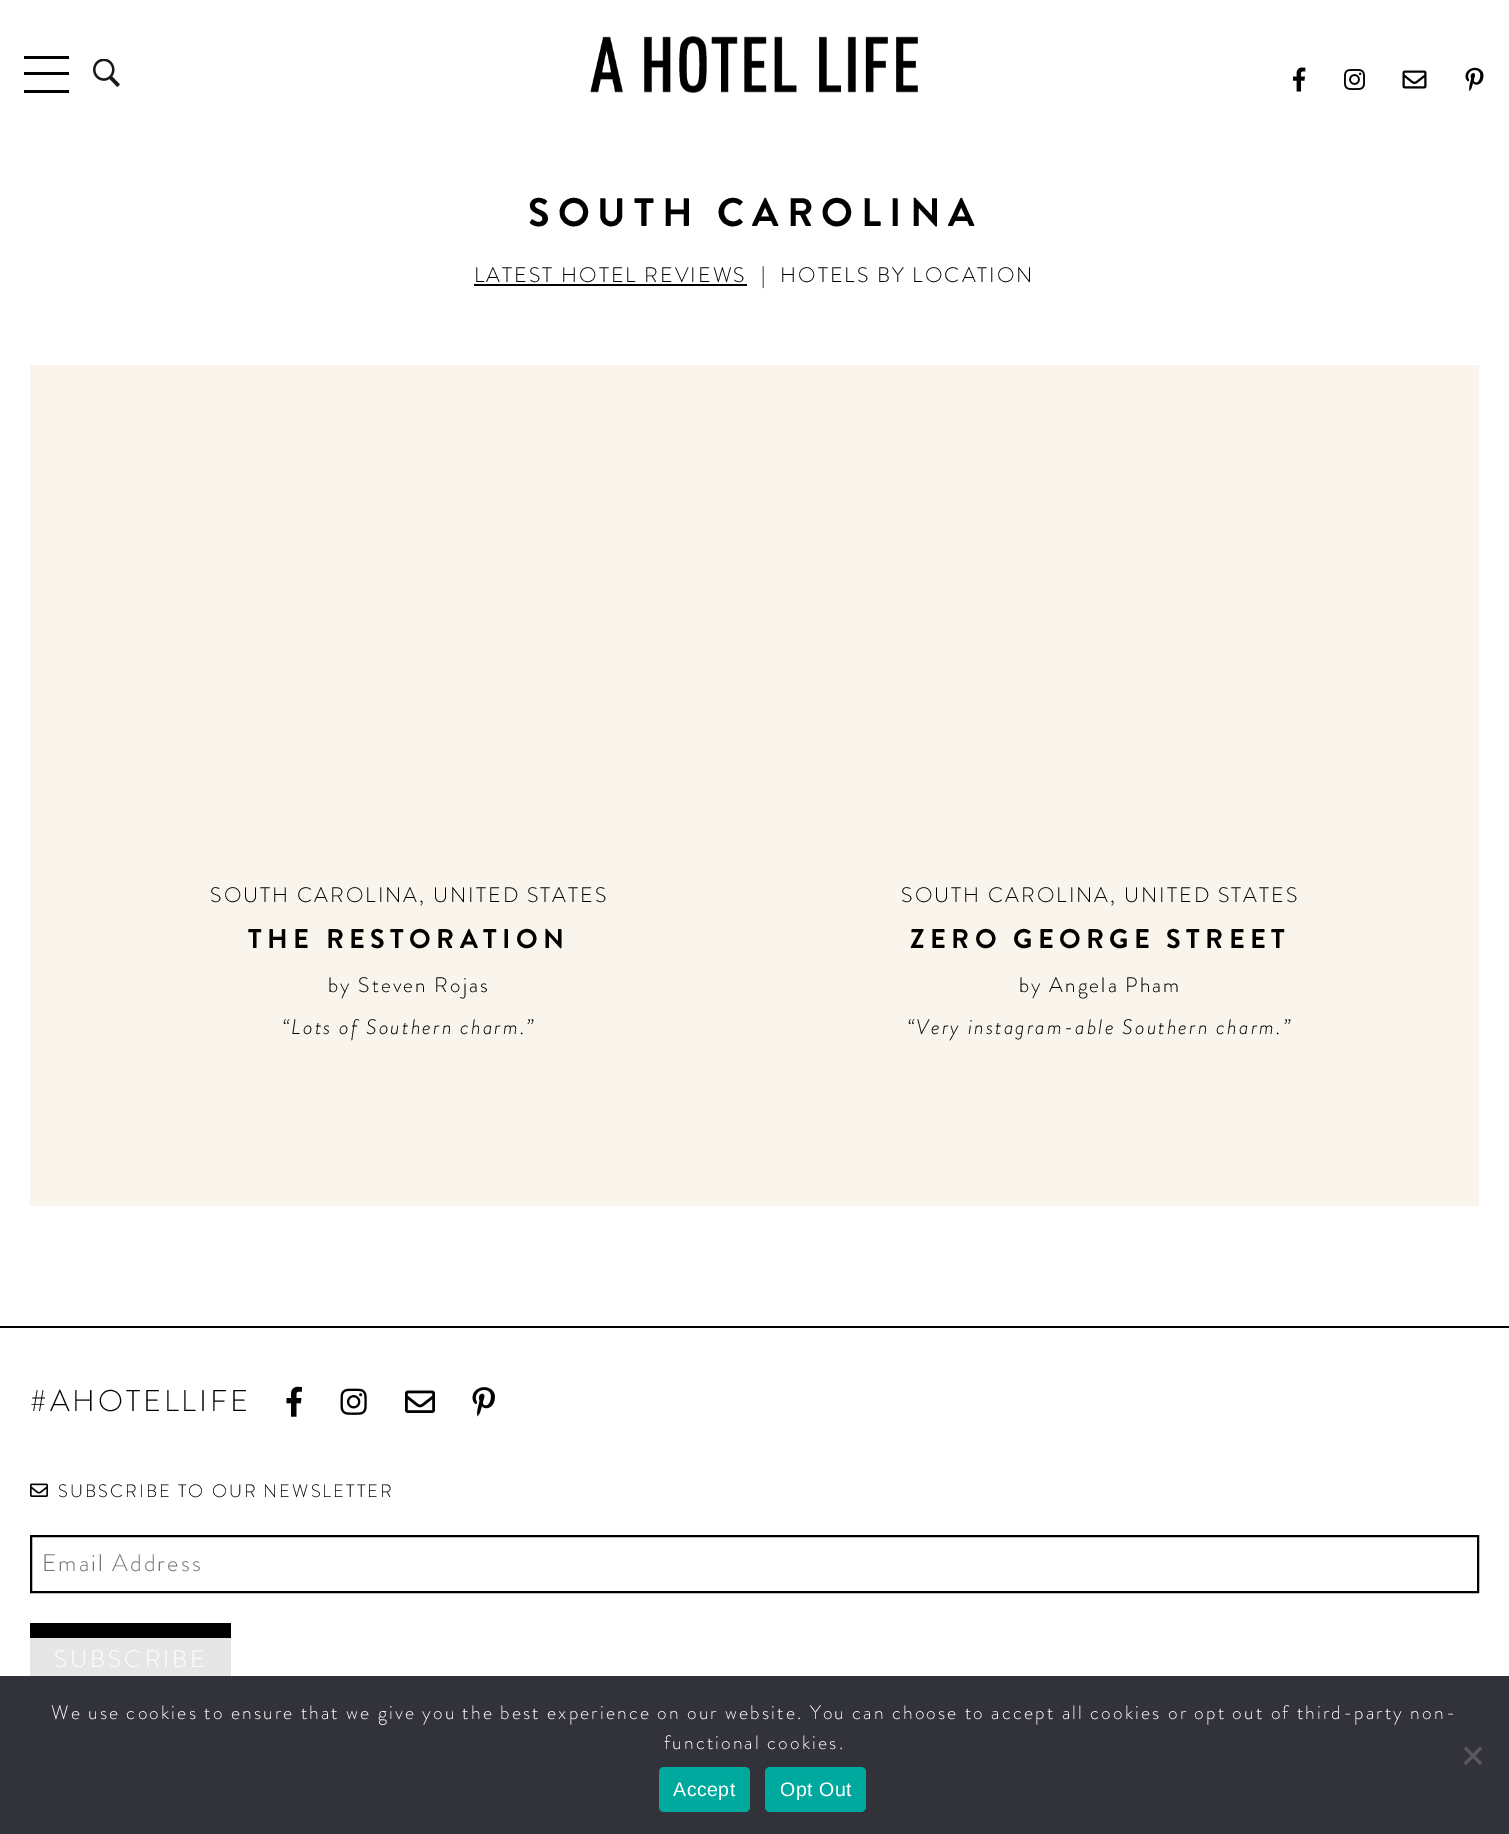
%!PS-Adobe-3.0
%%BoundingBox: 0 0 1509 1834
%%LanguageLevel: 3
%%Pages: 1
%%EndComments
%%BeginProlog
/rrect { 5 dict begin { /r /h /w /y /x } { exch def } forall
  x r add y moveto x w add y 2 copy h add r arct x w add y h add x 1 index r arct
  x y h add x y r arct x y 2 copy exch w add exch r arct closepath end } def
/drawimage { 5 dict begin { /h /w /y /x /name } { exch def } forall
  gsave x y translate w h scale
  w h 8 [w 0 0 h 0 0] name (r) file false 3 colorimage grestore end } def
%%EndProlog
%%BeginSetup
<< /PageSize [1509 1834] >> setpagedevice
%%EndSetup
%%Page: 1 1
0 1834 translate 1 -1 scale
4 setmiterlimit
1 setgray
0 0 1509 1834 rectfill
0 setgray
24 56 45 3 rectfill
24 72 45 3 rectfill
24 90 45 3 rectfill
(images/1.raw) 93 59 27 29 drawimage
(images/2.raw) 590 36 328 57 drawimage
(images/3.raw) 1293 67 13 25 drawimage
(images/4.raw) 1344 69 21 21 drawimage
(images/5.raw) 1402 70 25 19 drawimage
(images/6.raw) 1465 67 19 25 drawimage
0.012 0 0 setrgbcolor
474 284 273 2 rectfill
0.98 0.961 0.925 setrgbcolor
30 365 1449 841 rectfill
0 setgray
0 1326 1509 2 rectfill
(images/7.raw) 286 1386 16 31 drawimage
(images/8.raw) 340 1388 27 27 drawimage
(images/9.raw) 405 1390 30 23 drawimage
(images/10.raw) 472 1387 23 30 drawimage
(images/11.raw) 30 1483 18 14 drawimage
2 setlinewidth
31 1536 1447 56 rectstroke
30 1623 201 15 rectfill
0.902 setgray
30 1638 201 38 rectfill
0.196 0.196 0.227 setrgbcolor
0 1676 1509 158 rectfill
0.349 0.349 0.365 setrgbcolor
newpath 1480 1746.5 moveto 1482 1749 lineto 1466 1765 lineto 1464 1762.5 lineto closepath fill
newpath 1464 1749 moveto 1466 1746.5 lineto 1482 1762.5 lineto 1480 1765 lineto closepath fill
0 0.663 0.616 setrgbcolor
659 1767 91 45 5 rrect fill
765 1767 101 45 5 rrect fill
/BrandonGrotesque-Bold [39.75 0 0 -39.75 0 0] selectfont
0.012 0 0 setrgbcolor
528 226 moveto 8 0 (SOUTH CAROLINA) ashow
/BrandonGrotesque-Light [21 0 0 -21 0 0] selectfont
474 282 moveto 2.1 0 (LATEST HOTEL REVIEWS) ashow
761 282 moveto 2.1 0 (|) ashow
780 282 moveto 2.1 0 (HOTELS BY LOCATION) ashow
210 902 moveto 2.1 0 (SOUTH CAROLINA, UNITED STATES) ashow
/BrandonGrotesque-Bold [27 0 0 -27 0 0] selectfont
248 948 moveto 5.4 0 (THE RESTORATION) ashow
/BrandonGrotesque-Light [21 0 0 -21 0 0] selectfont
328 992 moveto 2.1 0 (by Steven Rojas) ashow
/BrandonGrotesque-LightItalic [21 0 0 -21 0 0] selectfont
282 1034 moveto 2.1 0 (“Lots of Southern charm.”) ashow
/BrandonGrotesque-Light [21 0 0 -21 0 0] selectfont
901 902 moveto 2.1 0 (SOUTH CAROLINA, UNITED STATES) ashow
/BrandonGrotesque-Bold [27 0 0 -27 0 0] selectfont
910 948 moveto 5.4 0 (ZERO GEORGE STREET) ashow
/BrandonGrotesque-Light [21 0 0 -21 0 0] selectfont
1019 992 moveto 2.1 0 (by Angela Pham) ashow
/BrandonGrotesque-LightItalic [21 0 0 -21 0 0] selectfont
907 1034 moveto 2.1 0 (“Very instagram-able Southern charm.”) ashow
/BrandonGrotesque-Light [30 0 0 -30 0 0] selectfont
30 1411 moveto 3 0 (#AHOTELLIFE) ashow
/BrandonGrotesque-Light [18 0 0 -18 0 0] selectfont
58 1497 moveto 2.1 0 (SUBSCRIBE TO OUR NEWSLETTER) ashow
/BrandonGrotesque-Light [24 0 0 -24 0 0] selectfont
0.459 setgray
42 1571 moveto 2.1 0 (Email Address) ashow
1 setgray
54 1667 moveto 3 0 (SUBSCRIBE) ashow
/BrandonGrotesque-Light [19.5 0 0 -19.5 0 0] selectfont
51 1719 moveto 2.1 0 (We use cookies to ensure that we give you the best experience on our website. You can choose to accept all cookies or opt out of third-party non-) ashow
664 1749 moveto 2.1 0 (functional cookies.) ashow
/LiberationSans-Regular [19.5 0 0 -19.5 0 0] selectfont
673 1796 moveto 0.5 0 (Accept) ashow
780 1796 moveto 0.5 0 (Opt Out) ashow
showpage
%%EOF
